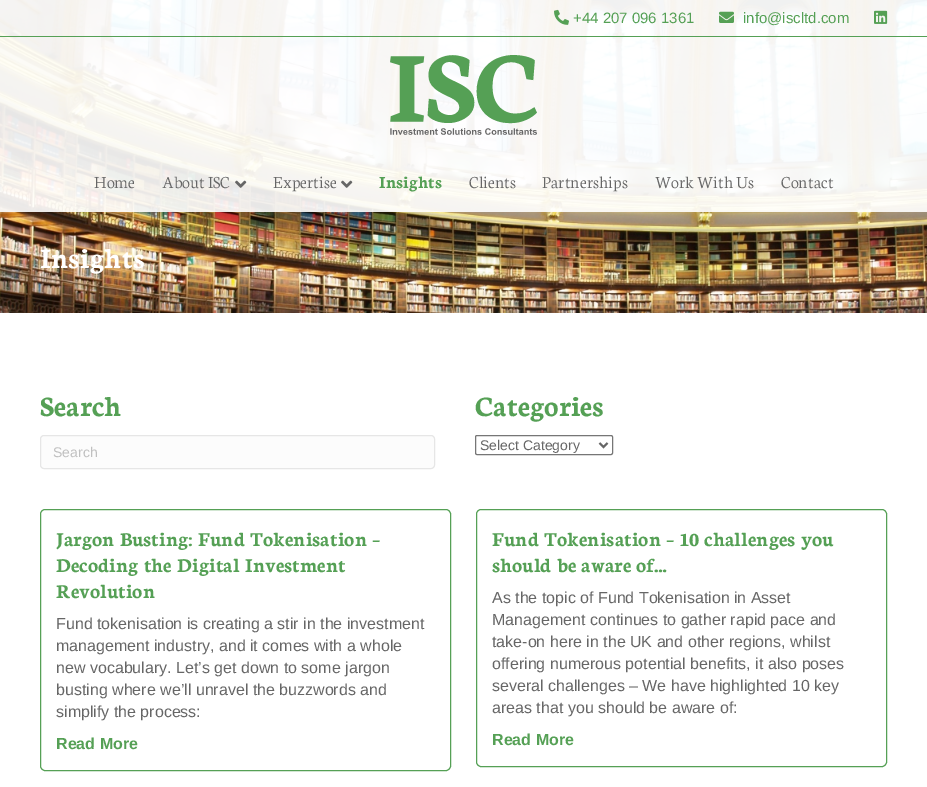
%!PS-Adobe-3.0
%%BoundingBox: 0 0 927 787
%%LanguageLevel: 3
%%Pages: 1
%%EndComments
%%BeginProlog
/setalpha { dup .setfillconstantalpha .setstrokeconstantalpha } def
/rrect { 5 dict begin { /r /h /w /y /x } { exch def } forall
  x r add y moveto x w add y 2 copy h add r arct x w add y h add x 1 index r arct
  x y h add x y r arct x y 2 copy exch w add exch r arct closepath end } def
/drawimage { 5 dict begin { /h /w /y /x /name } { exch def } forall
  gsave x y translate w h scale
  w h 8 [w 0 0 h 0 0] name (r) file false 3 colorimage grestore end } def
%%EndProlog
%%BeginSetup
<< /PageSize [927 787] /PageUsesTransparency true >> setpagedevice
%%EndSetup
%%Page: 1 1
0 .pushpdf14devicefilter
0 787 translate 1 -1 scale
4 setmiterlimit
1 setgray
0 0 927 787 rectfill
(images/7.raw) 0 0 927 313 drawimage
0.9 setalpha
0 0 927 36 rectfill
1 setalpha
0.333 0.627 0.333 setrgbcolor
0 36 927 1 rectfill
(images/1.raw) 554 9 15 16 drawimage
(images/2.raw) 719 11 15 12 drawimage
(images/3.raw) 874 10 14 14 drawimage
0.9 setalpha
1 setgray
0 37 927 175 rectfill
1 setalpha
(images/4.raw) 390 55 147 80 drawimage
(images/5.raw) 235 180 12 8 drawimage
(images/6.raw) 341 180 12 8 drawimage
0.988 setgray
40.5 435.5 394 33 3.5 rrect gsave fill grestore
0.902 setgray
stroke
0.463 setgray
475.5 435.5 137 19 1.5 rrect stroke
0.4 setgray
2 setlinewidth
newpath 599.5 443 moveto 603.5 447 lineto 607.5 443 lineto stroke
0.333 0.627 0.333 setrgbcolor
1 setlinewidth
40.5 509.5 410 261 4.5 rrect stroke
476.5 509.5 410 257 4.5 rrect stroke
/LiberationSans-Regular [15 0 0 -15 0 0] selectfont
573 23 moveto (+44 207 096 1361) show
743 23 moveto (info@iscltd.com) show
/Neuton-Light [18 0 0 -18 0 0] selectfont
0.4 setgray
94 188 moveto (Home) show
162 188 moveto (About ISC) show
273 188 moveto (Expertise) show
/Neuton-Bold [18 0 0 -18 0 0] selectfont
0.333 0.627 0.333 setrgbcolor
379 188 moveto (Insights) show
/Neuton-Light [18 0 0 -18 0 0] selectfont
0.4 setgray
469 188 moveto (Clients) show
542 188 moveto (Partnerships) show
655 188 moveto (Work With Us) show
781 188 moveto (Contact) show
/Neuton-Bold [30 0 0 -30 0 0] selectfont
1 setgray
40 268 moveto (Insights) show
0.333 0.627 0.333 setrgbcolor
40 416 moveto (Search) show
/LiberationSans-Regular [14 0 0 -14 0 0] selectfont
0.753 setgray
53 457 moveto (Search) show
/Neuton-Bold [30 0 0 -30 0 0] selectfont
0.333 0.627 0.333 setrgbcolor
475 416 moveto (Categories) show
/LiberationSans-Regular [14 0 0 -14 0 0] selectfont
0.4 setgray
480 450 moveto (Select Category) show
/Neuton-Bold [21 0 0 -21 0 0] selectfont
0.333 0.627 0.333 setrgbcolor
56 546 moveto (Jargon Busting: Fund Tokenisation –) show
56 572 moveto (Decoding the Digital Investment) show
56 598 moveto (Revolution) show
/LiberationSans-Regular [16 0 0 -16 0 0] selectfont
0.4 setgray
56 629 moveto (Fund tokenisation is creating a stir in the investment) show
56 651 moveto (management industry, and it comes with a whole) show
56 673 moveto (new vocabulary. Let’s get down to some jargon) show
56 695 moveto (busting where we’ll unravel the buzzwords and) show
56 717 moveto (simplify the process:) show
/LiberationSans-Bold [16 0 0 -16 0 0] selectfont
0.333 0.627 0.333 setrgbcolor
56 749 moveto (Read More) show
/Neuton-Bold [21 0 0 -21 0 0] selectfont
492 546 moveto (Fund Tokenisation – 10 challenges you) show
492 572 moveto (should be aware of…) show
/LiberationSans-Regular [16 0 0 -16 0 0] selectfont
0.4 setgray
492 603 moveto (As the topic of Fund Tokenisation in Asset) show
492 625 moveto (Management continues to gather rapid pace and) show
492 647 moveto (take-on here in the UK and other regions, whilst) show
492 669 moveto (offering numerous potential benefits, it also poses) show
492 691 moveto (several challenges – We have highlighted 10 key) show
492 713 moveto (areas that you should be aware of:) show
/LiberationSans-Bold [16 0 0 -16 0 0] selectfont
0.333 0.627 0.333 setrgbcolor
492 745 moveto (Read More) show
.poppdf14devicefilter showpage
%%EOF
